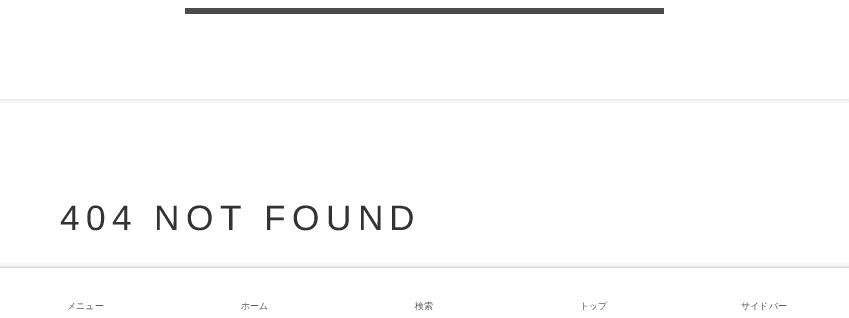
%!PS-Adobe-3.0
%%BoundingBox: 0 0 849 318
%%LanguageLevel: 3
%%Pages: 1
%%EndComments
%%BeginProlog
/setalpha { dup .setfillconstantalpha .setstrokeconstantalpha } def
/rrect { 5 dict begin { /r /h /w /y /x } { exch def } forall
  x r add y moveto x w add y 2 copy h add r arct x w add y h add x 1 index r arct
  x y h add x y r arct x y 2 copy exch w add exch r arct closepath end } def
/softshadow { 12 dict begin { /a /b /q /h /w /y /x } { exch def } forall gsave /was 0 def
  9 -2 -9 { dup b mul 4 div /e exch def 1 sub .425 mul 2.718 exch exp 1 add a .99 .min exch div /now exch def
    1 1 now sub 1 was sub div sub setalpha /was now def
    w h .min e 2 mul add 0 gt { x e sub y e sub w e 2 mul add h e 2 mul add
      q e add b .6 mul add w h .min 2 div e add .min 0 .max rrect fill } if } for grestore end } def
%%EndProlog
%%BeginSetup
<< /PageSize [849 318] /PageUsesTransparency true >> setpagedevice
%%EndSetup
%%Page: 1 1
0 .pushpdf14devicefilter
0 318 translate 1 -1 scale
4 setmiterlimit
1 setgray
0 0 849 318 rectfill
gsave
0 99 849 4 rectclip
0 setgray
0 2 849 99 0 2.5 0.1 softshadow
grestore
0.294 setgray
185 8 479 6 rectfill
0.663 setgray
0 268 849 50 0 2.5 1 softshadow
1 setgray
0 268 849 50 rectfill
/LiberationSans-Regular [35.25 0 0 -35.25 0 0] selectfont
0.2 setgray
60 230 moveto 6.4 0 (404 NOT FOUND) ashow
/WenQuanYiZenHei-Medium [9 0 0 -9 0 0] selectfont
0.361 setgray
67 309 moveto (メニュー) show
241 309 moveto (ホーム) show
415 309 moveto (検索) show
580 309 moveto (トップ) show
741 309 moveto (サイドバー) show
.poppdf14devicefilter showpage
%%EOF
